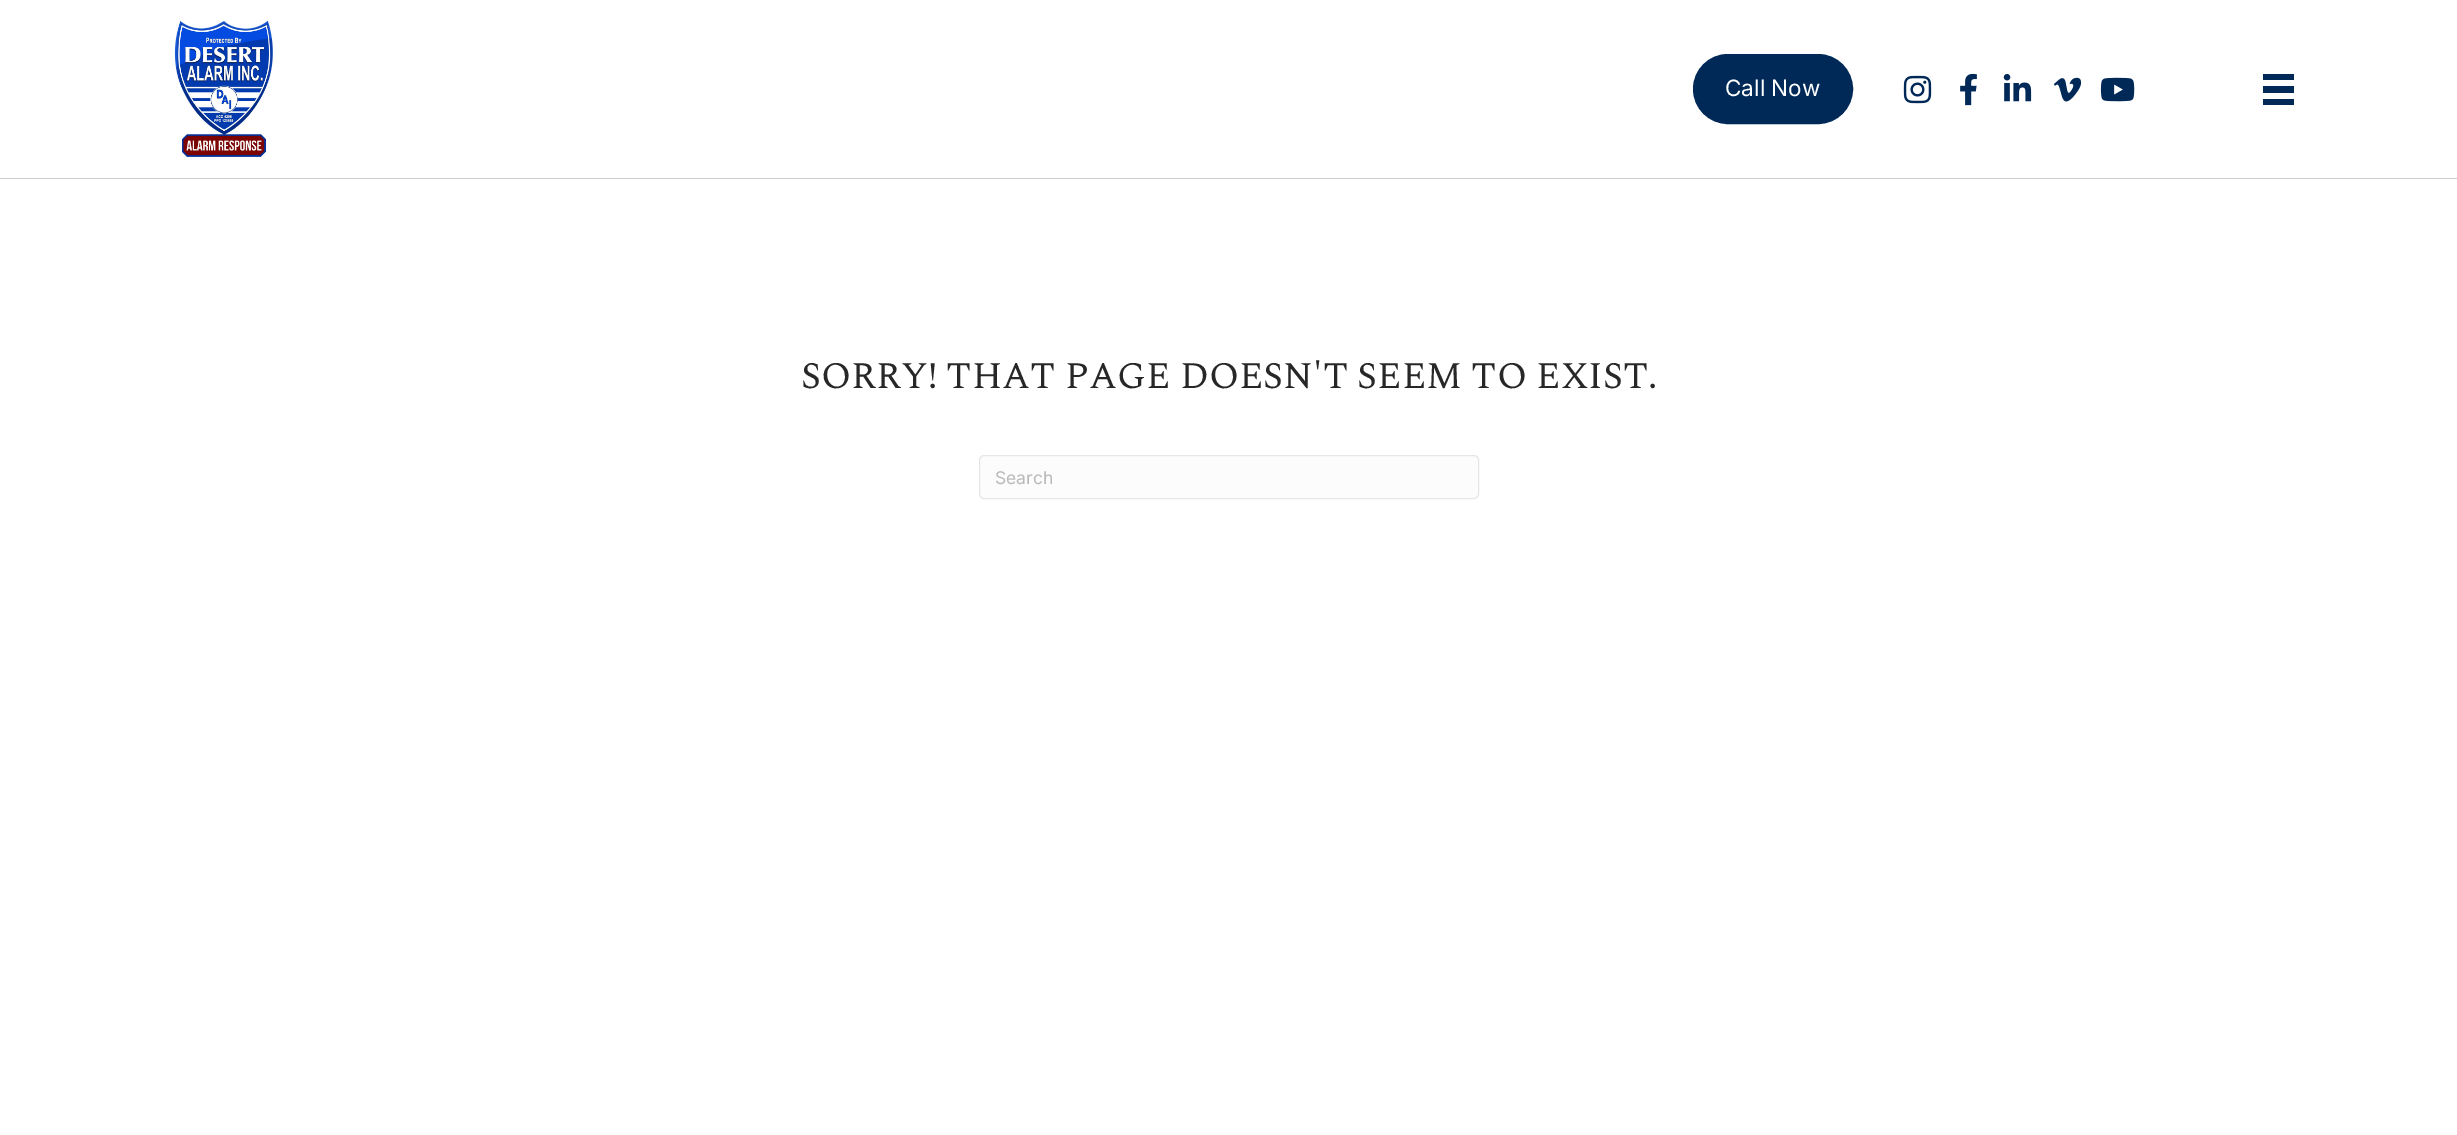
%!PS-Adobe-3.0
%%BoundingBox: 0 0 2457 1135
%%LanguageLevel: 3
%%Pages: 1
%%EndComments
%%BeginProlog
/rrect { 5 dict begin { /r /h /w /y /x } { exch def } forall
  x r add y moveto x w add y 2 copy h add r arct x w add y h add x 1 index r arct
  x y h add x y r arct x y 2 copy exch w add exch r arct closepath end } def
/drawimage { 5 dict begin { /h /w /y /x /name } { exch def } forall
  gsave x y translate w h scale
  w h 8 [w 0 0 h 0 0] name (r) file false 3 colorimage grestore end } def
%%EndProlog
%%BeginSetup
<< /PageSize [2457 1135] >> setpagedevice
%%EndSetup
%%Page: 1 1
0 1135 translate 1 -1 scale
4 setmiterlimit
1 setgray
0 0 2457 1135 rectfill
0.8 setgray
0 178 2457 1 rectfill
(images/1.raw) 174 20 99 137 drawimage
0 0.161 0.345 setrgbcolor
1694.5 55.5 157 67 33.5 rrect gsave fill grestore
3 setlinewidth
stroke
(images/2.raw) 1903 75 29 29 drawimage
(images/3.raw) 1960 73 17 33 drawimage
(images/4.raw) 2003 73 29 29 drawimage
(images/5.raw) 2053 77 29 25 drawimage
(images/6.raw) 2100 77 35 25 drawimage
2263 74 31 6 rectfill
2263 86 31 7 rectfill
2263 99 31 6 rectfill
0.988 setgray
979.5 455.5 499 43 4.5 rrect gsave fill grestore
0.902 setgray
1 setlinewidth
stroke
/Inter-Regular [22.5 0 0 -22.5 0 0] selectfont
1 setgray
1725 96 moveto (Call Now) show
/SpectralSC-Regular [37.5 0 0 -37.5 0 0] selectfont
0.153 setgray
801 388 moveto (SORRY! THAT PAGE DOESN'T SEEM TO EXIST.) show
/Inter-Regular [17.5 0 0 -17.5 0 0] selectfont
0.729 setgray
995 484 moveto (Search) show
showpage
%%EOF
